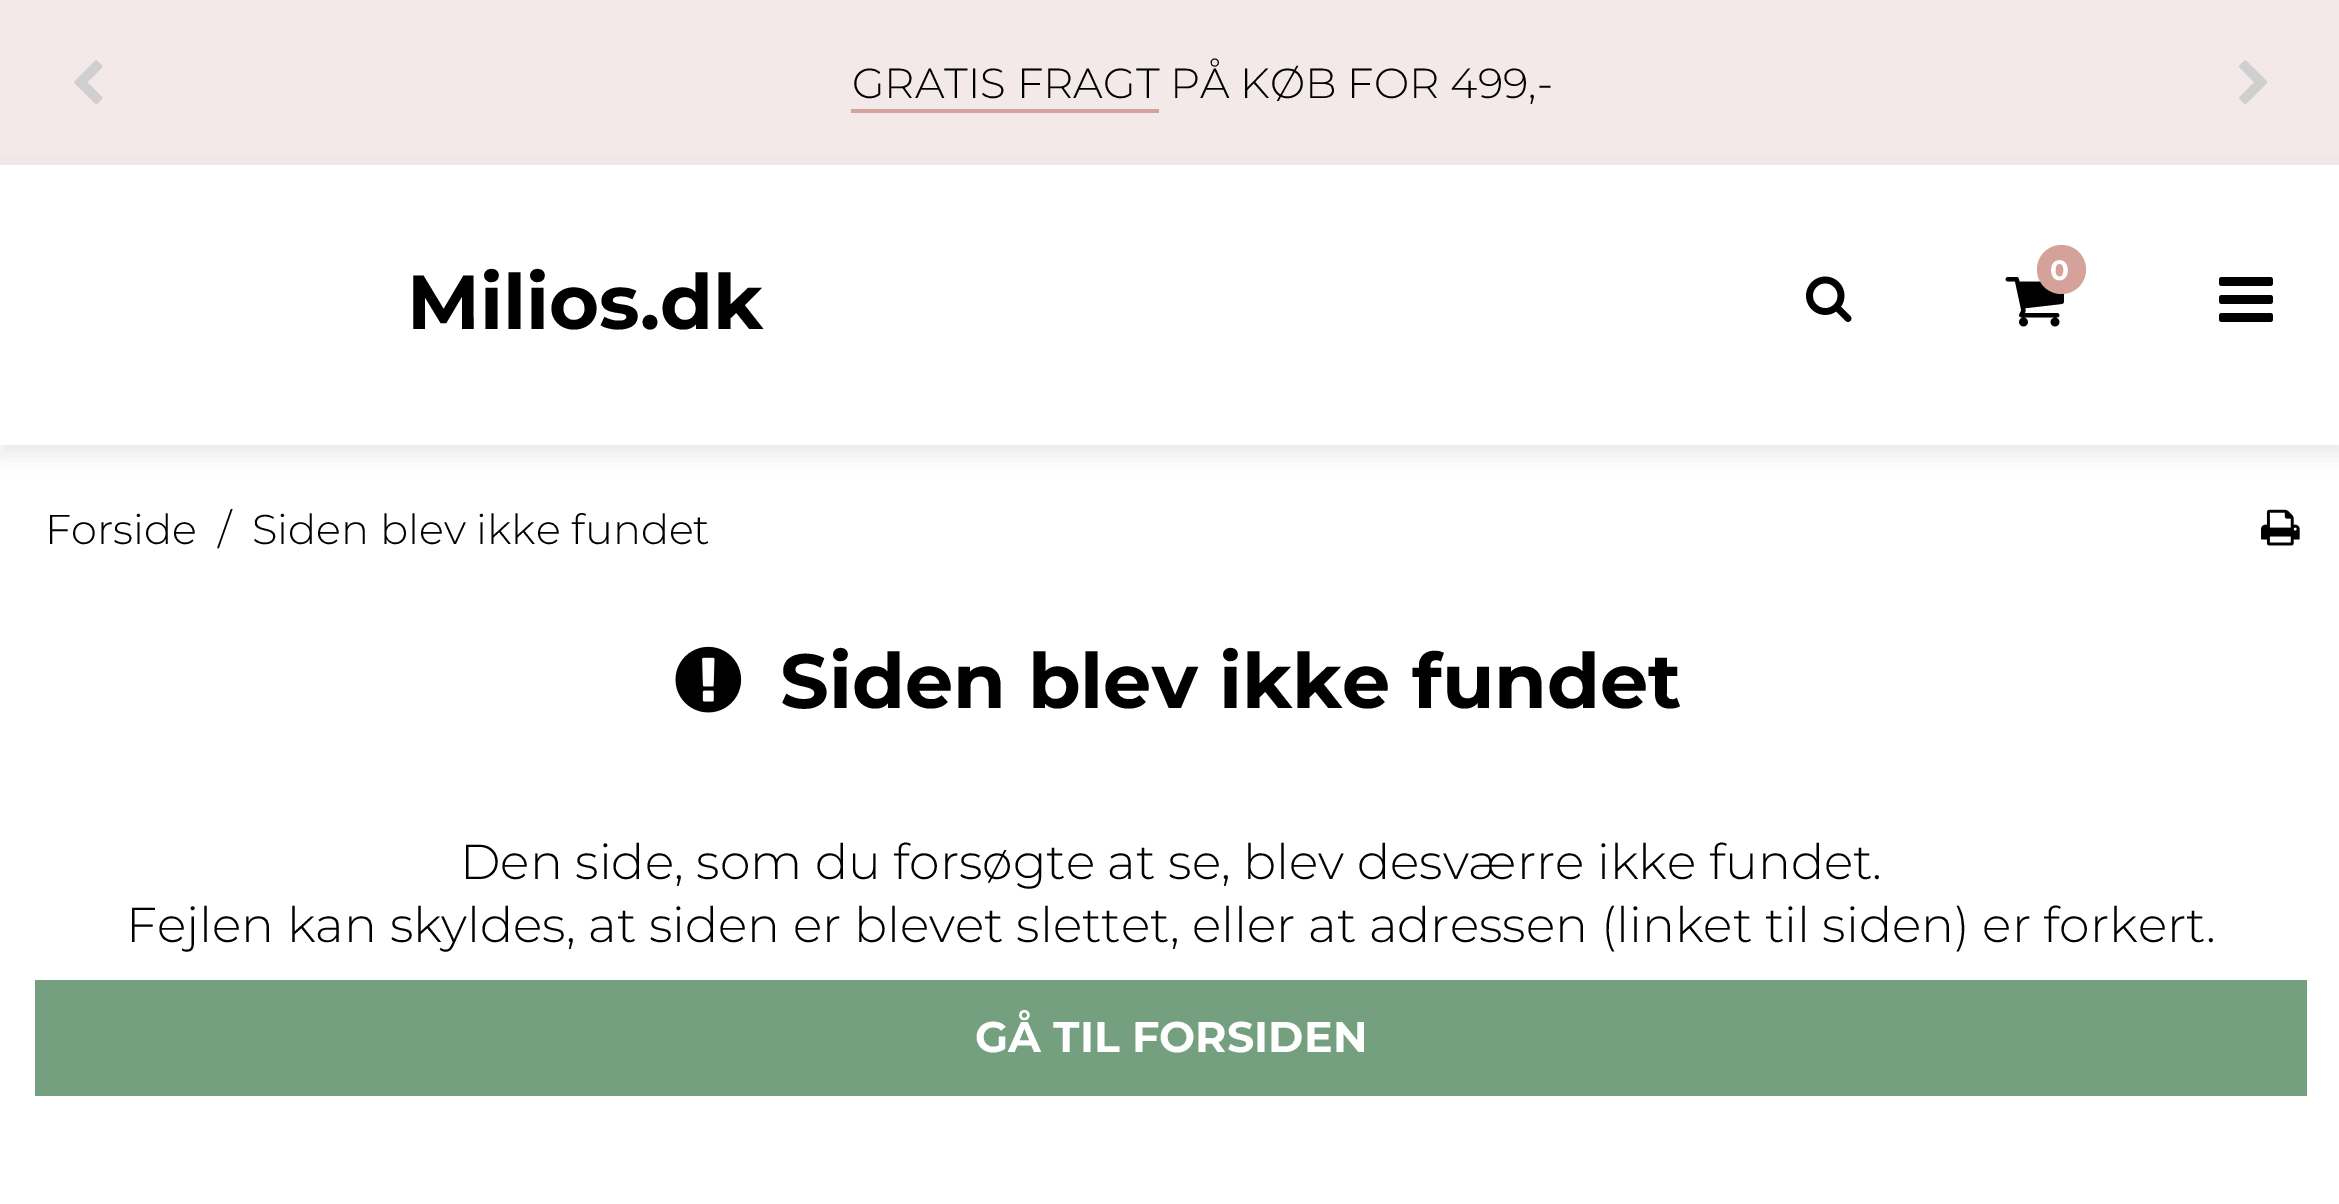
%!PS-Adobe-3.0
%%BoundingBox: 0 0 2339 1204
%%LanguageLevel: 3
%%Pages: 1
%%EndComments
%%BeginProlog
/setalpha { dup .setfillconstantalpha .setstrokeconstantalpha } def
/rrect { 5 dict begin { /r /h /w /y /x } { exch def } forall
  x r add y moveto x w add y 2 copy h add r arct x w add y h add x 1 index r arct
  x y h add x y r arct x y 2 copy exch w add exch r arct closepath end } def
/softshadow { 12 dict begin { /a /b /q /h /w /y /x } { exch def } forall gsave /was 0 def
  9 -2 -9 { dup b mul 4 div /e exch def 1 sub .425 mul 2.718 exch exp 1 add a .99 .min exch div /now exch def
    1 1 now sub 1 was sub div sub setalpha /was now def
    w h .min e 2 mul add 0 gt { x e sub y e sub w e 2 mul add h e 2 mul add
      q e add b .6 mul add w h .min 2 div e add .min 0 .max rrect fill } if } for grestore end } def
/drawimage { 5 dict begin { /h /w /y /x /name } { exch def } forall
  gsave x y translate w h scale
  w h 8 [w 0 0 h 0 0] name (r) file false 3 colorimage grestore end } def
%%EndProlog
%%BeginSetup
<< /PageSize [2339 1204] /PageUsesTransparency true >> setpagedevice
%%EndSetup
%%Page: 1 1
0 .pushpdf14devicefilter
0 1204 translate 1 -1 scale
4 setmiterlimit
1 setgray
0 0 2339 1204 rectfill
0.953 0.914 0.91 setrgbcolor
0 0 2339 165 rectfill
0.831 0.635 0.608 setrgbcolor
851 109 308 4 rectfill
(images/1.raw) 74 60 29 45 drawimage
(images/2.raw) 2239 60 29 45 drawimage
0 setgray
0 175 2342 280 0 9 0.08 softshadow
1 setgray
0 165 2339 280 rectfill
(images/3.raw) 2005 277 59 50 drawimage
0.831 0.635 0.608 setrgbcolor
newpath 2061.5 269.5 24.5 0 360 arc closepath fill
(images/4.raw) 1806 276 46 46 drawimage
(images/5.raw) 2219 277 54 45 drawimage
(images/6.raw) 2261 509 39 37 drawimage
(images/7.raw) 675 646 67 67 drawimage
0.455 0.627 0.498 setrgbcolor
35 980 2272 116 rectfill
/Montserrat-Light [42 0 0 -42 0 0] selectfont
0 setgray
852 98 moveto (GRATIS FRAGT PÅ KØB FOR 499,-) show
/Montserrat-Bold [76.5 0 0 -76.5 0 0] selectfont
407 329 moveto (Milios.dk) show
/Montserrat-Bold [28 0 0 -28 0 0] selectfont
1 setgray
2050 280 moveto (0) show
/Montserrat-Light [41.6 0 0 -41.6 0 0] selectfont
0 setgray
45 544 moveto (Forside) show
218 544 moveto (/) show
252 544 moveto (Siden blev ikke fundet) show
/Montserrat-Bold [76.5 0 0 -76.5 0 0] selectfont
780 708 moveto (Siden blev ikke fundet) show
/Montserrat-Light [49 0 0 -49 0 0] selectfont
460 879 moveto (Den side, som du forsøgte at se, blev desværre ikke fundet.) show
126 942 moveto (Fejlen kan skyldes, at siden er blevet slettet, eller at adressen \(linket til siden\) er forkert.) show
/Montserrat-Bold [42.9 0 0 -42.9 0 0] selectfont
1 setgray
975 1052 moveto (GÅ TIL FORSIDEN) show
.poppdf14devicefilter showpage
%%EOF
